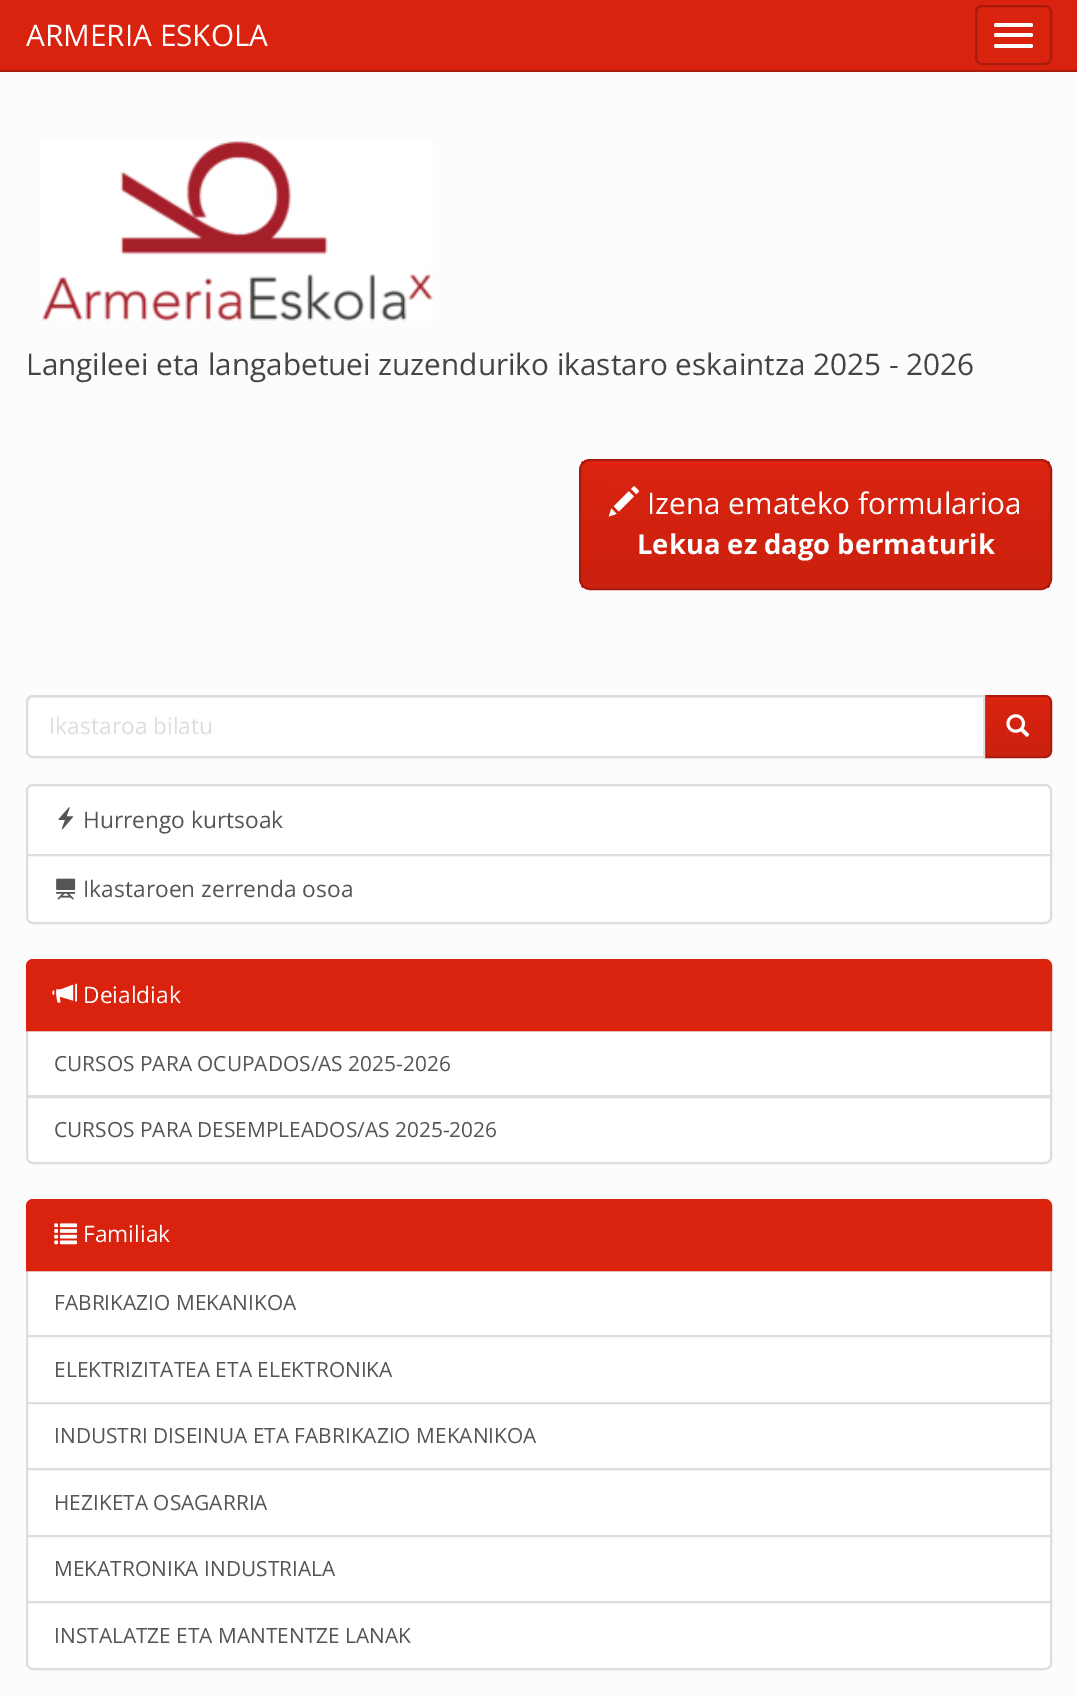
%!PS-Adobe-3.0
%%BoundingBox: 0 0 1077 1697
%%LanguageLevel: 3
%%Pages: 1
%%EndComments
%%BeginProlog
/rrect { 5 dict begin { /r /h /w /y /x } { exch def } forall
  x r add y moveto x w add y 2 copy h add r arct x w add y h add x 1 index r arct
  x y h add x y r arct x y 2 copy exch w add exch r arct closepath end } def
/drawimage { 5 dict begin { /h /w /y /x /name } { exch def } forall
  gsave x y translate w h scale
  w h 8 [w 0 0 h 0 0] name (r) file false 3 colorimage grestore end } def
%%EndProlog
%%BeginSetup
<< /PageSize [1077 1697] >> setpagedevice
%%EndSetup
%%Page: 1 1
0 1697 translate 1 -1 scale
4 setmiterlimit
0.988 setgray
0 0 1077 1697 rectfill
0.851 0.137 0.059 setrgbcolor
0 0 1077 70 rectfill
0.663 0.106 0.047 setrgbcolor
0 70 1077 2 rectfill
2 setlinewidth
976 6 75 58 6 rrect stroke
1 setgray
994 23 39 4 2 rrect fill
994 33 39 4 2 rrect fill
994 44 39 4 2 rrect fill
(images/1.raw) 41 141 392 180 drawimage
gsave
579 459 473 131 11 rrect clip newpath
gsave newpath 581 460 moveto 1050 460 lineto 1050 588 lineto 581 588 lineto closepath clip newpath
<< /ShadingType 2 /ColorSpace /DeviceRGB /Coords [816 460 816 588] /Extend [true true] /Function << /FunctionType 3 /Domain [0 1] /Functions [<< /FunctionType 2 /Domain [0 1] /C0 [0.906 0.145 0.063] /C1 [0.851 0.137 0.059] /N 1 >> << /FunctionType 2 /Domain [0 1] /C0 [0.851 0.137 0.059] /C1 [0.796 0.129 0.055] /N 1 >>] /Bounds [0.06] /Encode [0 1 0 1] >> >> shfill grestore
grestore
0.663 0.106 0.047 setrgbcolor
580 460 471 129 10 rrect stroke
(images/2.raw) 608 486 31 31 drawimage
gsave newpath 986 697 moveto 1050 697 lineto 1050 756 lineto 986 756 lineto closepath clip newpath
<< /ShadingType 2 /ColorSpace /DeviceRGB /Coords [1018 697 1018 756] /Extend [true true] /Function << /FunctionType 3 /Domain [0 1] /Functions [<< /FunctionType 2 /Domain [0 1] /C0 [0.906 0.145 0.063] /C1 [0.851 0.137 0.059] /N 1 >> << /FunctionType 2 /Domain [0 1] /C0 [0.851 0.137 0.059] /C1 [0.796 0.129 0.055] /N 1 >>] /Bounds [0.06] /Encode [0 1 0 1] >> >> shfill grestore
newpath 985 696 moveto 1045 696 lineto 1048.5 696 1051 698.5 1051 702 curveto 1051 751 lineto 1051 754.5 1048.5 757 1045 757 curveto 985 757 lineto closepath stroke
1 setgray
newpath 33 695 moveto 985 695 lineto 985 758 lineto 33 758 lineto 29 758 26 755 26 751 curveto 26 702 lineto 26 698 29 695 33 695 curveto closepath fill
0.925 setgray
newpath 33 698 moveto 984 698 lineto 984 697 lineto 33 697 lineto 29 697 28 701 28 704 curveto 28 701 30 698 33 698 curveto closepath fill
0.867 setgray
newpath 33 696 moveto 984 696 lineto 984 757 lineto 33 757 lineto 29.5 757 27 754.5 27 751 curveto 27 702 lineto 27 698.5 29.5 696 33 696 curveto closepath stroke
(images/3.raw) 1006 714 24 23 drawimage
1 setgray
newpath 33 785 moveto 1045 785 lineto 1048.5 785 1051 787.5 1051 791 curveto 1051 855 lineto 27 855 lineto 27 791 lineto 27 787.5 29.5 785 33 785 curveto closepath gsave fill grestore
0.867 setgray
stroke
(images/4.raw) 58 807 16 23 drawimage
1 setgray
newpath 27 855 moveto 1051 855 lineto 1051 917 lineto 1051 920.5 1048.5 923 1045 923 curveto 33 923 lineto 29.5 923 27 920.5 27 917 curveto closepath gsave fill grestore
0.867 setgray
stroke
(images/5.raw) 56 878 20 22 drawimage
1 setgray
newpath 27 1030 moveto 1051 1030 lineto 1051 1096 lineto 27 1096 lineto closepath gsave fill grestore
0.867 setgray
stroke
0.851 0.137 0.059 setrgbcolor
newpath 33 960 moveto 1045 960 lineto 1048.5 960 1051 962.5 1051 966 curveto 1051 1030 lineto 27 1030 lineto 27 966 lineto 27 962.5 29.5 960 33 960 curveto closepath gsave fill grestore
stroke
(images/6.raw) 52 983 25 20 drawimage
1 setgray
newpath 27 1097 moveto 1051 1097 lineto 1051 1157 lineto 1051 1160.5 1048.5 1163 1045 1163 curveto 33 1163 lineto 29.5 1163 27 1160.5 27 1157 curveto closepath gsave fill grestore
0.867 setgray
stroke
1 setgray
newpath 27 1270 moveto 1051 1270 lineto 1051 1336 lineto 27 1336 lineto closepath gsave fill grestore
0.867 setgray
stroke
0.851 0.137 0.059 setrgbcolor
newpath 33 1200 moveto 1045 1200 lineto 1048.5 1200 1051 1202.5 1051 1206 curveto 1051 1270 lineto 27 1270 lineto 27 1206 lineto 27 1202.5 29.5 1200 33 1200 curveto closepath gsave fill grestore
stroke
(images/7.raw) 54 1223 23 22 drawimage
1 setgray
newpath 27 1336 moveto 1051 1336 lineto 1051 1403 lineto 27 1403 lineto closepath gsave fill grestore
0.867 setgray
stroke
1 setgray
newpath 27 1403 moveto 1051 1403 lineto 1051 1469 lineto 27 1469 lineto closepath gsave fill grestore
0.867 setgray
stroke
1 setgray
newpath 27 1469 moveto 1051 1469 lineto 1051 1536 lineto 27 1536 lineto closepath gsave fill grestore
0.867 setgray
stroke
1 setgray
newpath 27 1536 moveto 1051 1536 lineto 1051 1602 lineto 27 1602 lineto closepath gsave fill grestore
0.867 setgray
stroke
1 setgray
newpath 27 1602 moveto 1051 1602 lineto 1051 1663 lineto 1051 1666.5 1048.5 1669 1045 1669 curveto 33 1669 lineto 29.5 1669 27 1666.5 27 1663 curveto closepath gsave fill grestore
0.867 setgray
stroke
/OpenSans-Regular [29.75 0 0 -29.75 0 0] selectfont
1 setgray
26 46 moveto (ARMERIA ESKOLA) show
0.267 setgray
26 375 moveto (Langileei eta langabetuei zuzenduriko ikastaro eskaintza 2025 - 2026) show
1 setgray
647 514 moveto (Izena emateko formularioa) show
/OpenSans-Bold [27.4 0 0 -27.4 0 0] selectfont
637 554 moveto (Lekua ez dago bermaturik) show
/OpenSans-Regular [22.75 0 0 -22.75 0 0] selectfont
0.867 setgray
49 734 moveto (Ikastaroa bilatu) show
0.333 setgray
83 828 moveto (Hurrengo kurtsoak) show
83 897 moveto (Ikastaroen zerrenda osoa) show
1 setgray
83 1003 moveto (Deialdiak) show
/OpenSans-Regular [20.9 0 0 -20.9 0 0] selectfont
0.333 setgray
54 1071 moveto (CURSOS PARA OCUPADOS/AS 2025-2026) show
54 1137 moveto (CURSOS PARA DESEMPLEADOS/AS 2025-2026) show
/OpenSans-Regular [22.75 0 0 -22.75 0 0] selectfont
1 setgray
83 1242 moveto (Familiak) show
/OpenSans-Regular [20.9 0 0 -20.9 0 0] selectfont
0.333 setgray
54 1310 moveto (FABRIKAZIO MEKANIKOA) show
54 1377 moveto (ELEKTRIZITATEA ETA ELEKTRONIKA) show
54 1443 moveto (INDUSTRI DISEINUA ETA FABRIKAZIO MEKANIKOA) show
54 1510 moveto (HEZIKETA OSAGARRIA) show
54 1576 moveto (MEKATRONIKA INDUSTRIALA) show
54 1643 moveto (INSTALATZE ETA MANTENTZE LANAK) show
showpage
%%EOF
